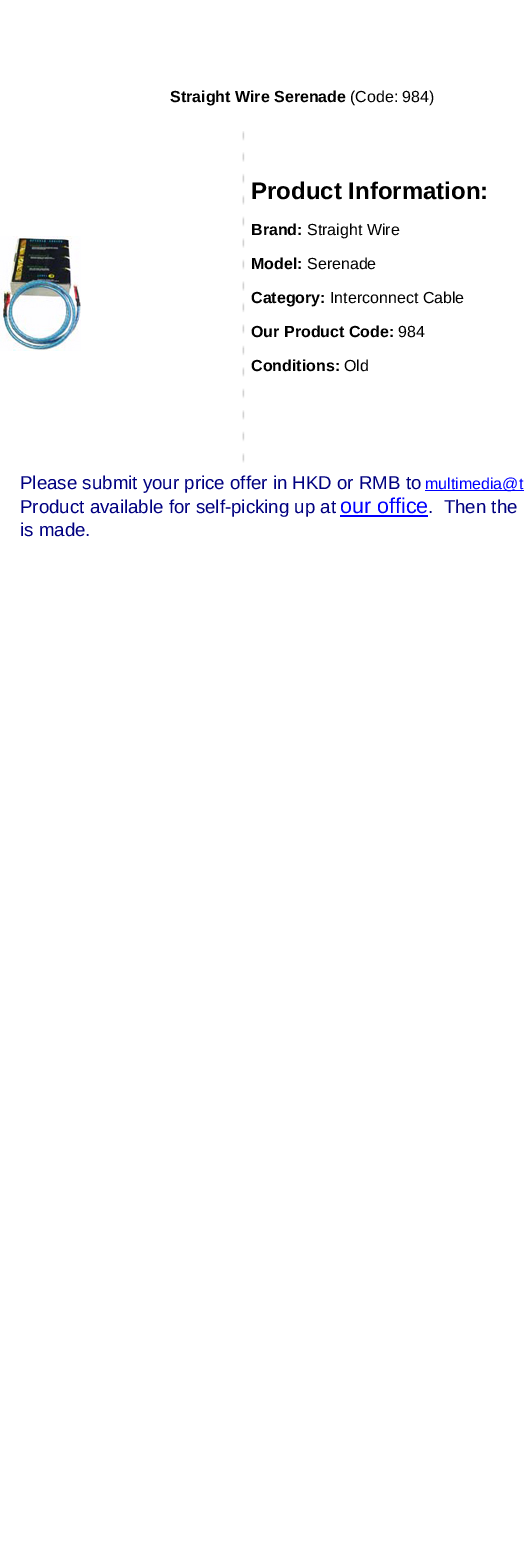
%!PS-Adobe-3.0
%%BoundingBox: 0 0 524 1567
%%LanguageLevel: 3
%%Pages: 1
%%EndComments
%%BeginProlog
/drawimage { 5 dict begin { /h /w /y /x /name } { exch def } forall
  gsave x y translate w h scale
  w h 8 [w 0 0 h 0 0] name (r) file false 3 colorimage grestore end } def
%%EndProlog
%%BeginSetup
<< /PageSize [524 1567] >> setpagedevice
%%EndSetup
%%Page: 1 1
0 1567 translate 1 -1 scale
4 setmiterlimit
1 setgray
0 0 524 1567 rectfill
(images/1.raw) 0 236 81 115 drawimage
(images/2.raw) 242 131 3 332 drawimage
0 0 1 setrgbcolor
425 490 99 1 rectfill
340 515 88 2 rectfill
/LiberationSans-Bold [16 0 0 -16 0 0] selectfont
0 setgray
170 102 moveto (Straight Wire Serenade) show
/LiberationSans-Regular [16 0 0 -16 0 0] selectfont
350 102 moveto (\(Code: 984\)) show
/LiberationSans-Bold [24 0 0 -24 0 0] selectfont
251 199 moveto (Product Information:) show
/LiberationSans-Bold [16 0 0 -16 0 0] selectfont
251 235 moveto (Brand:) show
/LiberationSans-Regular [16 0 0 -16 0 0] selectfont
307 235 moveto (Straight Wire) show
/LiberationSans-Bold [16 0 0 -16 0 0] selectfont
251 269 moveto (Model:) show
/LiberationSans-Regular [16 0 0 -16 0 0] selectfont
307 269 moveto (Serenade) show
/LiberationSans-Bold [16 0 0 -16 0 0] selectfont
251 303 moveto (Category:) show
/LiberationSans-Regular [16 0 0 -16 0 0] selectfont
330 303 moveto (Interconnect Cable) show
/LiberationSans-Bold [16 0 0 -16 0 0] selectfont
251 337 moveto (Our Product Code:) show
/LiberationSans-Regular [16 0 0 -16 0 0] selectfont
398 337 moveto (984) show
/LiberationSans-Bold [16 0 0 -16 0 0] selectfont
251 371 moveto (Conditions:) show
/LiberationSans-Regular [16 0 0 -16 0 0] selectfont
344 371 moveto (Old) show
/LiberationSans-Regular [18.7 0 0 -18.7 0 0] selectfont
0 0 0.502 setrgbcolor
20 489 moveto (Please submit your price offer in HKD or RMB to) show
/LiberationSans-Regular [16 0 0 -16 0 0] selectfont
0 0 1 setrgbcolor
425 489 moveto (multimedia@t) show
/LiberationSans-Regular [18.7 0 0 -18.7 0 0] selectfont
0 0 0.502 setrgbcolor
20 513 moveto (Product available for self-picking up at) show
/LiberationSans-Regular [21.5 0 0 -21.5 0 0] selectfont
0 0 1 setrgbcolor
340 513 moveto (our office) show
/LiberationSans-Regular [18.7 0 0 -18.7 0 0] selectfont
0 0 0.502 setrgbcolor
428 513 moveto (.  Then the) show
20 536 moveto (is made.) show
showpage
%%EOF
